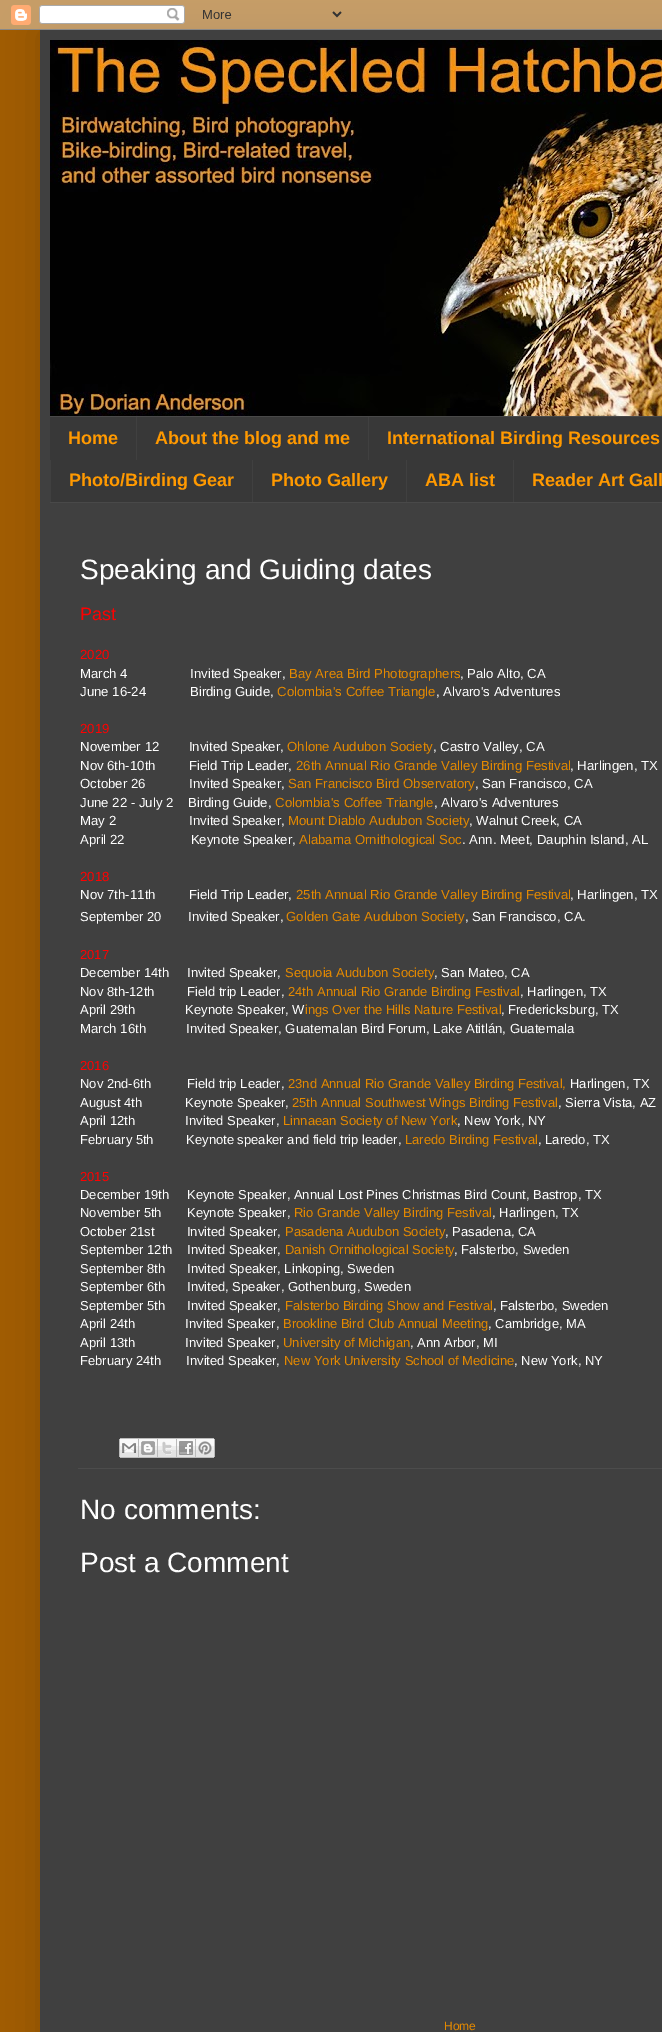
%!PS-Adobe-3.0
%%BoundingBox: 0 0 662 2032
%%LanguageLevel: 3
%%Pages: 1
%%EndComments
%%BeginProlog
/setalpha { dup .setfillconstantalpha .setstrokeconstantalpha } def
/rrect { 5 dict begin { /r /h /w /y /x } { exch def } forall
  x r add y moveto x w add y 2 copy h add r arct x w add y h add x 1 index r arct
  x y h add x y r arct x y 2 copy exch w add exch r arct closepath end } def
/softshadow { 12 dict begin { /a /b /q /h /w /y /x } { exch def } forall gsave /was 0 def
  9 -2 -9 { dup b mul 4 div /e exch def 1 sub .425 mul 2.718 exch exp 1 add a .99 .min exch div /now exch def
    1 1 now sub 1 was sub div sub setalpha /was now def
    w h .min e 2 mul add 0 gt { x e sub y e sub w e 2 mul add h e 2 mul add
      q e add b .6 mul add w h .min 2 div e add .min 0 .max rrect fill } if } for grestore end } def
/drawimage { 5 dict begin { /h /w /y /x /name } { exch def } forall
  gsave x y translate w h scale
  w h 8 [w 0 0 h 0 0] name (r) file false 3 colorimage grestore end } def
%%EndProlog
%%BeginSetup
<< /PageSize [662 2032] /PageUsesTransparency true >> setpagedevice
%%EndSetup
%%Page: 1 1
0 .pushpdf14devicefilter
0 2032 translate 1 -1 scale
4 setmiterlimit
0.631 0.361 0.008 setrgbcolor
0 0 662 2032 rectfill
0 setgray
40 30 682 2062 0 20 0.15 softshadow
(images/1.raw) 0 0 662 30 drawimage
0.251 setgray
40 30 622 2002 rectfill
(images/2.raw) 50 40 612 376 drawimage
0.22 setgray
50 417 612 85 rectfill
0.286 setgray
50 416 612 1 rectfill
50 502 612 1 rectfill
0.251 setgray
136 417 1 43 rectfill
368 417 1 43 rectfill
50 460 1 42 rectfill
252 460 1 42 rectfill
406 460 1 42 rectfill
513 460 1 42 rectfill
0.298 setgray
78 1468 584 1 rectfill
(images/3.raw) 119 1438 20 20 drawimage
(images/4.raw) 139 1438 19 20 drawimage
(images/5.raw) 158 1438 19 20 drawimage
(images/6.raw) 177 1438 19 20 drawimage
(images/7.raw) 196 1438 19 20 drawimage
/LiberationSans-Bold [18 0 0 -18 0 0] selectfont
1 0.6 0 setrgbcolor
68 444 moveto (Home) show
155 444 moveto (About the blog and me) show
387 444 moveto (International Birding Resources) show
69 486 moveto (Photo/Birding Gear) show
271 486 moveto (Photo Gallery) show
425 486 moveto (ABA list) show
532 486 moveto (Reader Art Gall) show
/LiberationSans-Regular [28 0 0 -28 0 0] selectfont
1 setgray
80 579 moveto (Speaking and Guiding dates) show
/LiberationSans-Regular [18 0 0 -18 0 0] selectfont
1 0 0 setrgbcolor
80 620 moveto (Past) show
/LiberationSans-Regular [13.2 0 0 -13.2 0 0] selectfont
80 659 moveto (2020) show
1 setgray
80 678 moveto (March 4) show
190 678 moveto (Invited Speaker,) show
0.894 0.537 0 setrgbcolor
289 678 moveto (Bay Area Bird Photographers) show
1 setgray
460 678 moveto (, Palo Alto, CA) show
80 696 moveto (June 16-24) show
190 696 moveto (Birding Guide,) show
0.894 0.537 0 setrgbcolor
277 696 moveto (Colombia's Coffee Triangle) show
1 setgray
436 696 moveto (, Alvaro's Adventures) show
1 0 0 setrgbcolor
80 733 moveto (2019) show
1 setgray
80 751 moveto (November 12        Invited Speaker,) show
0.894 0.537 0 setrgbcolor
287 751 moveto (Ohlone Audubon Society) show
1 setgray
433 751 moveto (, Castro Valley, CA) show
80 770 moveto (Nov 6th-10th         Field Trip Leader,) show
0.894 0.537 0 setrgbcolor
296 770 moveto (26th Annual Rio Grande Valley Birding Festival) show
1 setgray
570 770 moveto (, Harlingen, TX) show
80 788 moveto (October 26            Invited Speaker,) show
0.894 0.537 0 setrgbcolor
288 788 moveto (San Francisco Bird Observatory) show
1 setgray
475 788 moveto (, San Francisco, CA) show
80 807 moveto (June 22 - July 2    Birding Guide,) show
0.894 0.537 0 setrgbcolor
275 807 moveto (Colombia's Coffee Triangle) show
1 setgray
434 807 moveto (, Alvaro's Adventures) show
80 825 moveto (May 2                    Invited Speaker,) show
0.894 0.537 0 setrgbcolor
288 825 moveto (Mount Diablo Audubon Society) show
1 setgray
469 825 moveto (, Walnut Creek, CA) show
80 844 moveto (April 22                  Keynote Speaker,) show
0.894 0.537 0 setrgbcolor
299 844 moveto (Alabama Ornithological Soc) show
1 setgray
462 844 moveto (. Ann. Meet, Dauphin Island, AL) show
1 0 0 setrgbcolor
80 881 moveto (2018) show
1 setgray
80 899 moveto (Nov 7th-11th         Field Trip Leader,) show
0.894 0.537 0 setrgbcolor
296 899 moveto (25th Annual Rio Grande Valley Birding Festival) show
1 setgray
570 899 moveto (, Harlingen, TX) show
/LiberationSans-Regular [13 0 0 -13 0 0] selectfont
80 921 moveto (September 20) show
/LiberationSans-Regular [13.2 0 0 -13.2 0 0] selectfont
188 921 moveto (Invited Speaker,) show
0.894 0.537 0 setrgbcolor
286 921 moveto (Golden Gate Audubon Society) show
1 setgray
465 921 moveto (, San Francisco, CA.) show
/LiberationSans-Regular [13 0 0 -13 0 0] selectfont
1 0 0 setrgbcolor
80 959 moveto (2017) show
1 setgray
80 977 moveto (December 14th     Invited Speaker,) show
0.894 0.537 0 setrgbcolor
285 977 moveto (Sequoia Audubon Society) show
1 setgray
434 977 moveto (, San Mateo, CA) show
80 996 moveto (Nov 8th-12th         Field trip Leader,) show
0.894 0.537 0 setrgbcolor
288 996 moveto (24th Annual Rio Grande Birding Festival) show
1 setgray
520 996 moveto (, Harlingen, TX) show
80 1014 moveto (April 29th              Keynote Speaker, W) show
0.894 0.537 0 setrgbcolor
305 1014 moveto (ings Over the Hills Nature Festival) show
1 setgray
501 1014 moveto (, Fredericksburg, TX) show
/LiberationSans-Regular [13.2 0 0 -13.2 0 0] selectfont
80 1033 moveto (March 16th           Invited Speaker, Guatemalan Bird Forum, Lake Atitlán, Guatemala) show
/LiberationSans-Regular [13 0 0 -13 0 0] selectfont
1 0 0 setrgbcolor
80 1070 moveto (2016) show
1 setgray
80 1088 moveto (Nov 2nd-6th          Field trip Leader,) show
0.894 0.537 0 setrgbcolor
288 1088 moveto (23nd Annual Rio Grande Valley Birding Festival,) show
1 setgray
570 1088 moveto (Harlingen, TX) show
80 1107 moveto (August 4th            Keynote Speaker,) show
0.894 0.537 0 setrgbcolor
292 1107 moveto (25th Annual Southwest Wings Birding Festival) show
1 setgray
558 1107 moveto (, Sierra Vista, AZ) show
80 1125 moveto (April 12th              Invited Speaker,) show
0.894 0.537 0 setrgbcolor
283 1125 moveto (Linnaean Society of New York) show
1 setgray
457 1125 moveto (, New York, NY) show
80 1144 moveto (February 5th         Keynote speaker and field trip leader,) show
0.894 0.537 0 setrgbcolor
405 1144 moveto (Laredo Birding Festival) show
1 setgray
538 1144 moveto (, Laredo, TX) show
1 0 0 setrgbcolor
80 1181 moveto (2015) show
1 setgray
80 1199 moveto (December 19th     Keynote Speaker, Annual Lost Pines Christmas Bird Count, Bastrop, TX) show
80 1217 moveto (November 5th       Keynote Speaker,) show
0.894 0.537 0 setrgbcolor
294 1217 moveto (Rio Grande Valley Birding Festival) show
1 setgray
492 1217 moveto (, Harlingen, TX) show
80 1236 moveto (October 21st         Invited Speaker,) show
0.894 0.537 0 setrgbcolor
285 1236 moveto (Pasadena Audubon Society) show
1 setgray
445 1236 moveto (, Pasadena, CA) show
80 1254 moveto (September 12th    Invited Speaker,) show
0.894 0.537 0 setrgbcolor
285 1254 moveto (Danish Ornithological Society) show
1 setgray
454 1254 moveto (, Falsterbo, Sweden) show
80 1273 moveto (September 8th      Invited Speaker, Linkoping, Sweden) show
80 1291 moveto (September 6th      Invited, Speaker, Gothenburg, Sweden) show
80 1310 moveto (September 5th      Invited Speaker,) show
0.894 0.537 0 setrgbcolor
285 1310 moveto (Falsterbo Birding Show and Festival) show
1 setgray
493 1310 moveto (, Falsterbo, Sweden) show
80 1328 moveto (April 24th              Invited Speaker,) show
0.894 0.537 0 setrgbcolor
283 1328 moveto (Brookline Bird Club Annual Meeting) show
1 setgray
488 1328 moveto (, Cambridge, MA) show
80 1347 moveto (April 13th              Invited Speaker,) show
0.894 0.537 0 setrgbcolor
283 1347 moveto (University of Michigan) show
1 setgray
410 1347 moveto (, Ann Arbor, MI) show
80 1365 moveto (February 24th       Invited Speaker,) show
0.894 0.537 0 setrgbcolor
284 1365 moveto (New York University School of Medicine) show
1 setgray
514 1365 moveto (, New York, NY) show
/LiberationSans-Regular [28 0 0 -28 0 0] selectfont
80 1519 moveto (No comments:) show
80 1572 moveto (Post a Comment) show
/LiberationSans-Regular [12 0 0 -12 0 0] selectfont
0.894 0.537 0 setrgbcolor
444 2030 moveto (Home) show
.poppdf14devicefilter showpage
%%EOF
